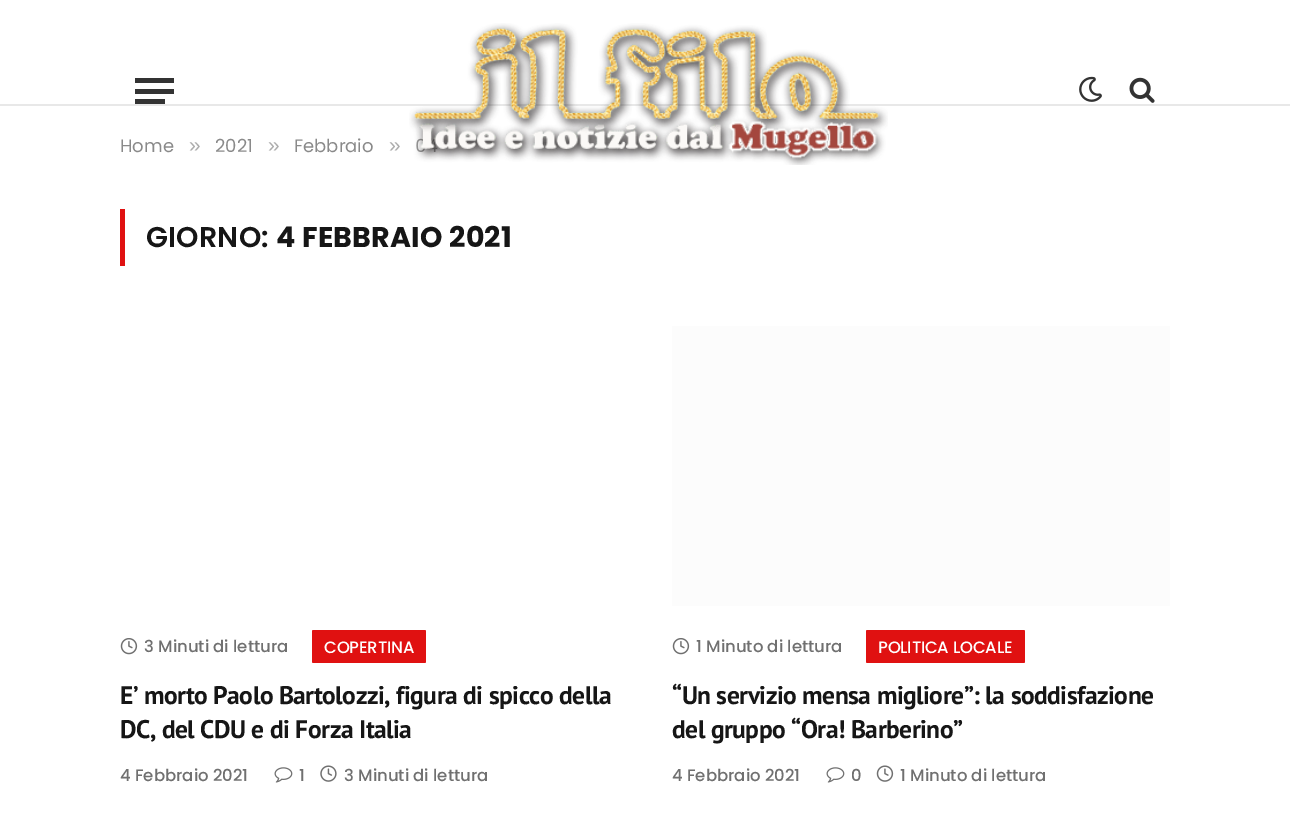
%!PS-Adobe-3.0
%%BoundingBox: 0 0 1290 815
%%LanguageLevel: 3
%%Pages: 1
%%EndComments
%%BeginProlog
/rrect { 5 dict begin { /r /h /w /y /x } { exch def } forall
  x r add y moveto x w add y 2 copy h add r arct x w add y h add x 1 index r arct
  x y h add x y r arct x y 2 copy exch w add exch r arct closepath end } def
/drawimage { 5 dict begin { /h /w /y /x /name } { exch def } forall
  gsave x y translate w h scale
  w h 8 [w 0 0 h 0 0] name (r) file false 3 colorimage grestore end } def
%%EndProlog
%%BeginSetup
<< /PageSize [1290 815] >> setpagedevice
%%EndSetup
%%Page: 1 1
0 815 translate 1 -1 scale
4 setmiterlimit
1 setgray
0 0 1290 815 rectfill
0.91 setgray
0 104 1290 2 rectfill
0.2 setgray
135 99 30 5 rectfill
135 78 39 5 rectfill
135 89 39 5 rectfill
(images/1.raw) 409 23 479 142 drawimage
(images/2.raw) 1079 76 23 26 drawimage
(images/3.raw) 1129 77 26 26 drawimage
0.878 0.067 0.067 setrgbcolor
120 209 5 57 rectfill
(images/4.raw) 120 638 18 17 drawimage
312 630 114 33 1.5 rrect fill
(images/5.raw) 274 767 19 16 drawimage
(images/6.raw) 320 765 17 17 drawimage
0.988 setgray
672 326 498 280 rectfill
(images/4.raw) 672 638 18 17 drawimage
0.878 0.067 0.067 setrgbcolor
866 630 159 33 1.5 rrect fill
(images/5.raw) 826 767 19 16 drawimage
(images/7.raw) 876 765 18 17 drawimage
/Poppins-Regular [18 0 0 -18 0 0] selectfont
0.541 setgray
120 152 moveto (Home) show
/LiberationSans-Regular [21 0 0 -21 0 0] selectfont
0.678 setgray
189 152 moveto (») show
/Poppins-Regular [18 0 0 -18 0 0] selectfont
0.541 setgray
215 152 moveto (2021) show
/LiberationSans-Regular [21 0 0 -21 0 0] selectfont
0.678 setgray
268 152 moveto (») show
/Poppins-Regular [18 0 0 -18 0 0] selectfont
0.541 setgray
294 152 moveto (Febbraio) show
/LiberationSans-Regular [21 0 0 -21 0 0] selectfont
0.678 setgray
389 152 moveto (») show
/Poppins-SemiBold [28.5 0 0 -28.5 0 0] selectfont
0.086 setgray
146 247 moveto 0.25 0 (GIORNO:) ashow
/Poppins-Bold [28.5 0 0 -28.5 0 0] selectfont
276 247 moveto 0.25 0 (4 FEBBRAIO 2021) ashow
/Poppins-Medium [16.5 0 0 -16.5 0 0] selectfont
0.439 setgray
144 652 moveto (3 Minuti di lettura) show
1 setgray
324 653 moveto -0.2 0 (COPERTINA) ashow
/PTSans-Bold [25.5 0 0 -25.5 0 0] selectfont
0.086 setgray
120 704 moveto -0.5 0 (E’ morto Paolo Bartolozzi, figura di spicco della) ashow
120 738 moveto -0.5 0 (DC, del CDU e di Forza Italia) ashow
/Poppins-Medium [16.5 0 0 -16.5 0 0] selectfont
0.439 setgray
120 781 moveto (4 Febbraio 2021) show
299 781 moveto (1) show
344 781 moveto (3 Minuti di lettura) show
696 652 moveto (1 Minuto di lettura) show
1 setgray
878 653 moveto -0.2 0 (POLITICA LOCALE) ashow
/PTSans-Bold [25.5 0 0 -25.5 0 0] selectfont
0.086 setgray
672 704 moveto -0.5 0 (“Un servizio mensa migliore”: la soddisfazione) ashow
672 738 moveto -0.5 0 (del gruppo “Ora! Barberino”) ashow
/Poppins-Medium [16.5 0 0 -16.5 0 0] selectfont
0.439 setgray
672 781 moveto (4 Febbraio 2021) show
851 781 moveto (0) show
900 781 moveto (1 Minuto di lettura) show
showpage
%%EOF
